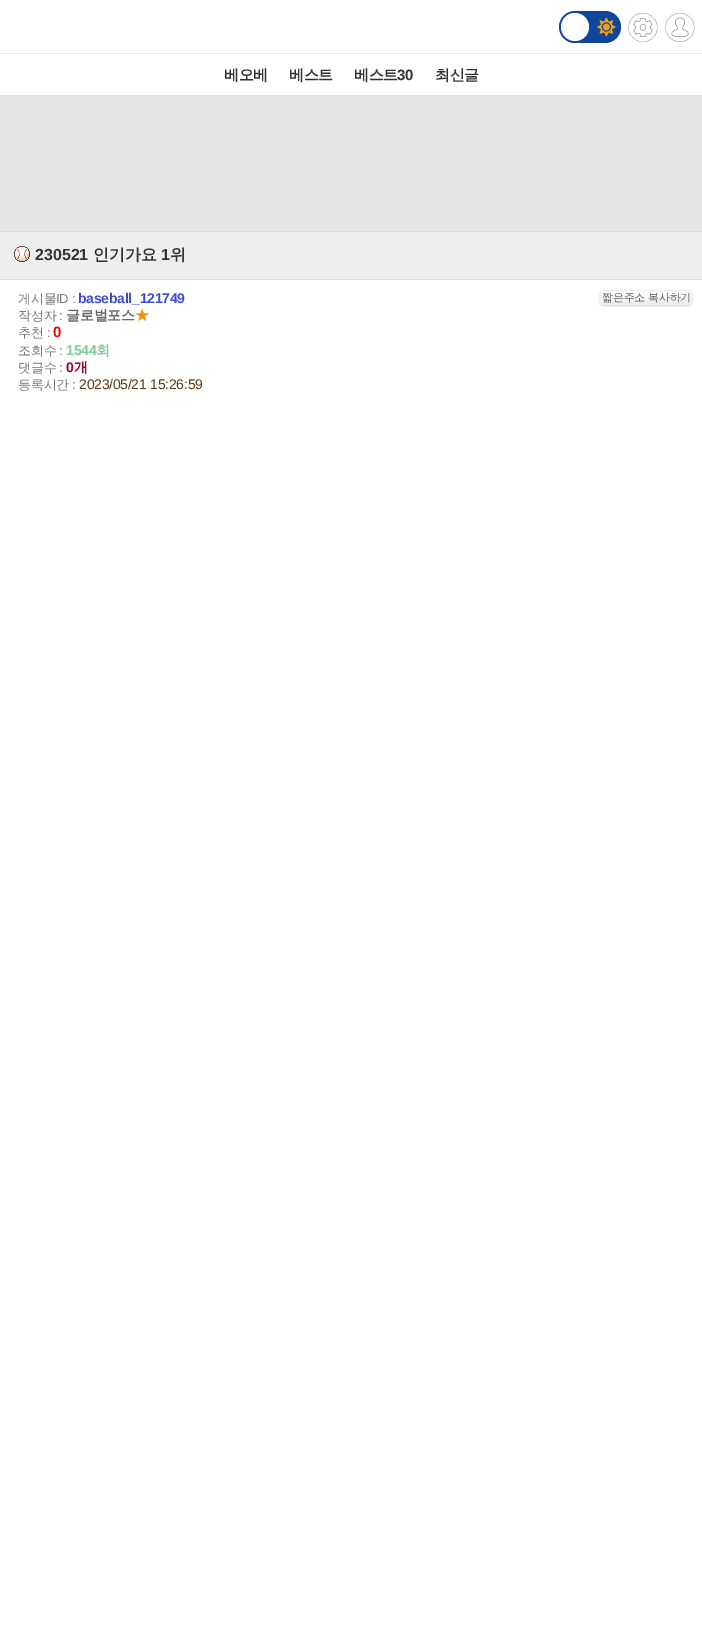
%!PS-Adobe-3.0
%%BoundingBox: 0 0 702 1641
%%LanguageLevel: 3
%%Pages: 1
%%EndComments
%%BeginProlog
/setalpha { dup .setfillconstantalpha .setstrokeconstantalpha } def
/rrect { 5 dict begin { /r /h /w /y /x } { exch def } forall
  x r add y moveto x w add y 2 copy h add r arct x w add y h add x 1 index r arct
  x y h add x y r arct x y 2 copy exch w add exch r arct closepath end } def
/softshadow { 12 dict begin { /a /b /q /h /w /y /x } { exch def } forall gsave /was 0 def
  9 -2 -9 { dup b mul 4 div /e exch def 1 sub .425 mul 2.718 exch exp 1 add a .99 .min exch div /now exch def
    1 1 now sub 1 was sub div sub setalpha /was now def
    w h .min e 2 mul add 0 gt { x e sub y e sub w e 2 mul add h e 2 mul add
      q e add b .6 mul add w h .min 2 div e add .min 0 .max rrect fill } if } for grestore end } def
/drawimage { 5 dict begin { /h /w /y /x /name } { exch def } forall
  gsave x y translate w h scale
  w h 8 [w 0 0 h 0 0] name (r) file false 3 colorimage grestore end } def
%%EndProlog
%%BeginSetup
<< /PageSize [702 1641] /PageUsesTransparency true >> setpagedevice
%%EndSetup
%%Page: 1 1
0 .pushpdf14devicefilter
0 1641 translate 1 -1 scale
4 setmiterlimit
1 setgray
0 0 702 1641 rectfill
0.918 setgray
0 53 702 1 rectfill
0.051 0.275 0.604 setrgbcolor
559 11 62 32 16 rrect fill
1 setgray
newpath 575 27 14 0 360 arc closepath fill
(images/1.raw) 597 17 19 20 drawimage
(images/2.raw) 628 13 30 29 drawimage
(images/3.raw) 665 13 30 29 drawimage
0.878 setgray
0 95 702 1 rectfill
0.898 setgray
0 96 702 135 rectfill
0.933 setgray
0 232 702 47 rectfill
0.867 setgray
0 231 702 1 rectfill
0 279 702 1 rectfill
(images/4.raw) 14 246 16 16 drawimage
0 setgray
600 291 92 15 4 1 0.2 softshadow
gsave
600 290 92 15 4 rrect clip newpath
gsave newpath 600 291 moveto 692 291 lineto 692 304 lineto 600 304 lineto closepath clip newpath
<< /ShadingType 2 /ColorSpace /DeviceRGB /Coords [601 291 601 304] /Extend [true true] /Function << /FunctionType 2 /Domain [0 1] /C0 [1 1 1] /C1 [0.929 0.929 0.929] /N 1 >> >> shfill grestore
grestore
0.937 setgray
600.5 290.5 91 14 3.5 rrect stroke
/WenQuanYiZenHei-Bold [15 0 0 -15 0 0] selectfont
0.2 setgray
224 80 moveto -0.5 0 (베오베) ashow
289 80 moveto -0.5 0 (베스트) ashow
354 80 moveto -0.5 0 (베스트) ashow
/LiberationSans-Bold [15 0 0 -15 0 0] selectfont
397 80 moveto -0.5 0 (30) ashow
/WenQuanYiZenHei-Bold [15 0 0 -15 0 0] selectfont
435 80 moveto -0.5 0 (최신글) ashow
/LiberationSans-Bold [16 0 0 -16 0 0] selectfont
35 260 moveto (230521) show
/WenQuanYiZenHei-Bold [16 0 0 -16 0 0] selectfont
93 260 moveto (인기가요) show
/LiberationSans-Bold [16 0 0 -16 0 0] selectfont
161 260 moveto (1) show
/WenQuanYiZenHei-Bold [16 0 0 -16 0 0] selectfont
170 260 moveto (위) show
/WenQuanYiZenHei-Medium [13 0 0 -13 0 0] selectfont
0.467 setgray
18 303 moveto -0.25 0 (게시물) ashow
/LiberationSans-Regular [13 0 0 -13 0 0] selectfont
56 303 moveto -0.25 0 (ID :) ashow
/LiberationSans-Bold [14 0 0 -14 0 0] selectfont
0.243 0.294 0.847 setrgbcolor
78 303 moveto -0.25 0 (baseball_121749) ashow
/WenQuanYiZenHei-Medium [11 0 0 -11 0 0] selectfont
0.376 setgray
602 301 moveto -0.25 0 (짧은주소 복사하기) ashow
/WenQuanYiZenHei-Medium [13 0 0 -13 0 0] selectfont
0.467 setgray
18 320 moveto -0.25 0 (작성자) ashow
/LiberationSans-Regular [13 0 0 -13 0 0] selectfont
59 320 moveto -0.25 0 (:) ashow
/WenQuanYiZenHei-Bold [14 0 0 -14 0 0] selectfont
0.4 setgray
66 320 moveto -0.25 0 (글로벌포스) ashow
1 0.549 0 setrgbcolor
135 320 moveto -0.25 0 (★) ashow
/WenQuanYiZenHei-Medium [13 0 0 -13 0 0] selectfont
0.467 setgray
18 337 moveto -0.25 0 (추천) ashow
/LiberationSans-Regular [13 0 0 -13 0 0] selectfont
47 337 moveto -0.25 0 (:) ashow
/LiberationSans-Bold [15 0 0 -15 0 0] selectfont
1 0 0 setrgbcolor
53 337 moveto -0.25 0 (0) ashow
/WenQuanYiZenHei-Medium [13 0 0 -13 0 0] selectfont
0.467 setgray
18 355 moveto -0.25 0 (조회수) ashow
/LiberationSans-Regular [13 0 0 -13 0 0] selectfont
59 355 moveto -0.25 0 (:) ashow
/LiberationSans-Bold [14 0 0 -14 0 0] selectfont
0.51 0.792 0.612 setrgbcolor
66 355 moveto -0.25 0 (1544) ashow
/WenQuanYiZenHei-Bold [14 0 0 -14 0 0] selectfont
96 355 moveto -0.25 0 (회) ashow
/WenQuanYiZenHei-Medium [13 0 0 -13 0 0] selectfont
0.467 setgray
18 372 moveto -0.25 0 (댓글수) ashow
/LiberationSans-Regular [13 0 0 -13 0 0] selectfont
59 372 moveto -0.25 0 (:) ashow
/LiberationSans-Bold [14 0 0 -14 0 0] selectfont
0.62 0 0.224 setrgbcolor
66 372 moveto -0.25 0 (0) ashow
/WenQuanYiZenHei-Bold [14 0 0 -14 0 0] selectfont
74 372 moveto -0.25 0 (개) ashow
/WenQuanYiZenHei-Medium [13 0 0 -13 0 0] selectfont
0.467 setgray
18 389 moveto -0.25 0 (등록시간) ashow
/LiberationSans-Regular [13 0 0 -13 0 0] selectfont
72 389 moveto -0.25 0 (:) ashow
/LiberationSans-Regular [14 0 0 -14 0 0] selectfont
0.376 0.224 0.075 setrgbcolor
79 389 moveto -0.25 0 (2023/05/21 15:26:59) ashow
.poppdf14devicefilter showpage
%%EOF
